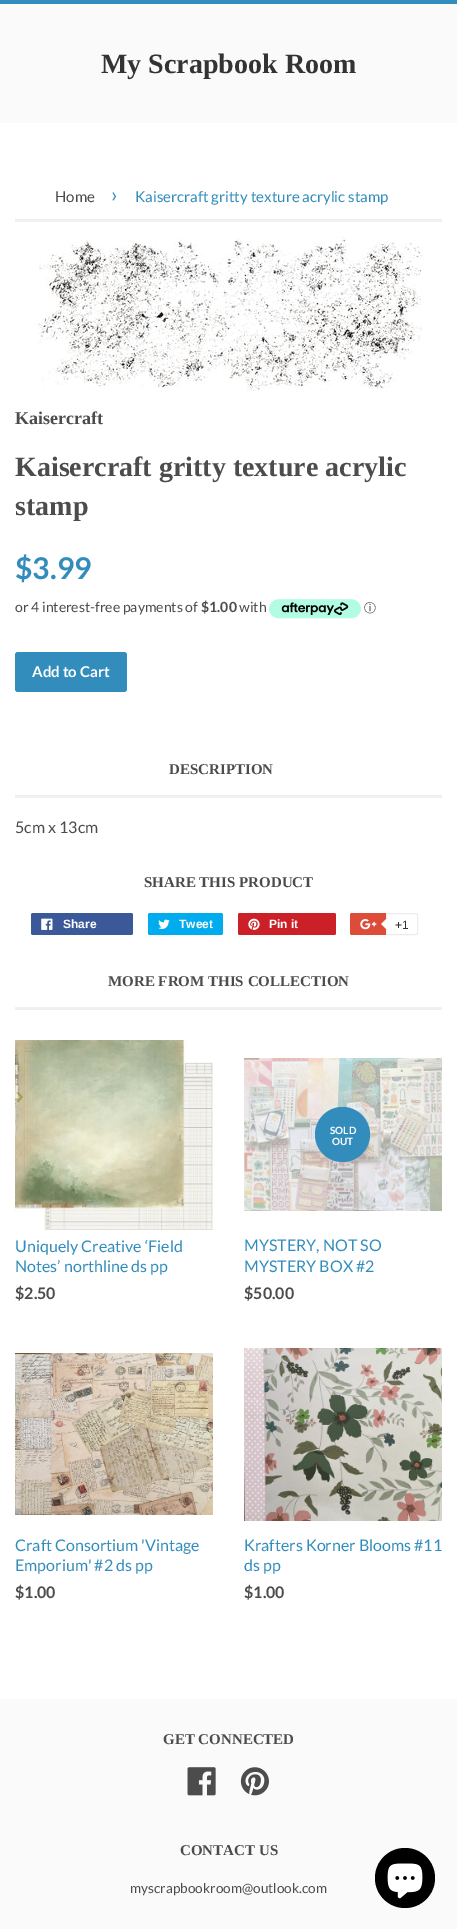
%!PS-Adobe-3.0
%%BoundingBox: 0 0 457 1929
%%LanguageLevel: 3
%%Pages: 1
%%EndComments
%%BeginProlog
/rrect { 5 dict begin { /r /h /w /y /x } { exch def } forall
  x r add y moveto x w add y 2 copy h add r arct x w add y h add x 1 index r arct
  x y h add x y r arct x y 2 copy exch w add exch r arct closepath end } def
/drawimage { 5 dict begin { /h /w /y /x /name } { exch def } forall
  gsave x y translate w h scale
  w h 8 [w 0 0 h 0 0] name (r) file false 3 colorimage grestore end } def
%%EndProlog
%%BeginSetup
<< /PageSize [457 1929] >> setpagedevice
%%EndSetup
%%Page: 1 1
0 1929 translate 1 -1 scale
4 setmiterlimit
1 setgray
0 0 457 1929 rectfill
0.2 0.553 0.737 setrgbcolor
0 0 457 4 rectfill
0.98 setgray
0 4 457 119 rectfill
0.941 setgray
15 219 427 3 rectfill
(images/1.raw) 37 237 386 154 drawimage
(images/2.raw) 269 599 92 20 drawimage
0.2 0.553 0.737 setrgbcolor
15 652 112 40 3 rrect fill
0.941 setgray
15 795 427 3 rectfill
0.231 0.349 0.596 setrgbcolor
31 913 102 22 2 rrect fill
(images/3.raw) 41 918 12 12 drawimage
0 0.675 0.929 setrgbcolor
148 913 75 22 2 rrect fill
(images/4.raw) 158 919 12 10 drawimage
0.796 0.125 0.153 setrgbcolor
238 913 98 22 2 rrect fill
(images/5.raw) 248 918 12 12 drawimage
0.867 0.294 0.224 setrgbcolor
350 913 66 22 2 rrect fill
(images/6.raw) 360 919 17 11 drawimage
1 setgray
newpath 386.5 913.5 moveto 416 913.5 lineto 417 913.5 417.5 914 417.5 915 curveto 417.5 933 lineto 417.5 934 417 934.5 416 934.5 curveto 386.5 934.5 lineto closepath gsave fill grestore
0.925 setgray
stroke
newpath 387 918 moveto 387 930 lineto 381 924 lineto closepath fill
1 setgray
newpath 388 918 moveto 388 930 lineto 382 924 lineto closepath fill
0.941 setgray
15 1007 427 3 rectfill
(images/7.raw) 15 1040 198 190 drawimage
(images/8.raw) 244 1058 198 153 drawimage
0.2 0.553 0.737 setrgbcolor
newpath 342.5 1134.5 27.5 0 360 arc closepath fill
(images/9.raw) 15 1353 198 162 drawimage
(images/10.raw) 244 1348 198 173 drawimage
0.98 setgray
0 1699 457 230 rectfill
(images/11.raw) 187 1767 29 29 drawimage
(images/12.raw) 240 1767 29 29 drawimage
0 setgray
newpath 405 1878 30 0 360 arc closepath fill
(images/13.raw) 387 1863 36 36 drawimage
/LiberationSerif-Bold [28 0 0 -28 0 0] selectfont
0.2 setgray
101 73 moveto (My Scrapbook Room) show
/Lato-Regular [15 0 0 -15 0 0] selectfont
0.298 setgray
55 202 moveto (Home) show
/Lato-Regular [21 0 0 -21 0 0] selectfont
0.2 0.553 0.737 setrgbcolor
111 202 moveto (›) show
/Lato-Regular [15 0 0 -15 0 0] selectfont
135 202 moveto (Kaisercraft gritty texture acrylic stamp) show
/LiberationSerif-Bold [18 0 0 -18 0 0] selectfont
0.298 setgray
15 424 moveto (Kaisercraft) show
/LiberationSerif-Bold [28 0 0 -28 0 0] selectfont
15 476 moveto (Kaisercraft gritty texture acrylic) show
15 515 moveto (stamp) show
/Lato-Bold [30 0 0 -30 0 0] selectfont
0.2 0.553 0.737 setrgbcolor
15 579 moveto ($3.99) show
/Lato-Regular [14 0 0 -14 0 0] selectfont
0.298 setgray
15 612 moveto (or 4 interest-free payments of) show
/Lato-Bold [14 0 0 -14 0 0] selectfont
201 612 moveto ($1.00) show
/Lato-Regular [14 0 0 -14 0 0] selectfont
239 612 moveto (with) show
/WenQuanYiZenHei-Medium [12 0 0 -12 0 0] selectfont
364 612 moveto (ⓘ) show
/Lato-Bold [15 0 0 -15 0 0] selectfont
1 setgray
32 677 moveto (Add to Cart) show
/LiberationSerif-Bold [15 0 0 -15 0 0] selectfont
0.298 setgray
169 774 moveto (DESCRIPTION) show
/Lato-Regular [16 0 0 -16 0 0] selectfont
15 833 moveto (5cm x 13cm) show
/LiberationSerif-Bold [15 0 0 -15 0 0] selectfont
144 887 moveto (SHARE THIS PRODUCT) show
/LiberationSans-Bold [12 0 0 -12 0 0] selectfont
1 setgray
63 928 moveto (Share) show
179 928 moveto (Tweet) show
269 928 moveto (Pin it) show
/LiberationSans-Regular [12 0 0 -12 0 0] selectfont
0.2 setgray
395 929 moveto (+1) show
/LiberationSerif-Bold [15 0 0 -15 0 0] selectfont
0.298 setgray
108 986 moveto (MORE FROM THIS COLLECTION) show
/Lato-Regular [16 0 0 -16 0 0] selectfont
0.2 0.553 0.737 setrgbcolor
15 1252 moveto (Uniquely Creative ‘Field) show
15 1272 moveto (Notes’ northline ds pp) show
/Lato-Bold [16 0 0 -16 0 0] selectfont
0.298 setgray
15 1299 moveto ($2.50) show
/Lato-Bold [10 0 0 -10 0 0] selectfont
1 setgray
330 1134 moveto (SOLD) show
332 1145 moveto (OUT) show
/Lato-Regular [16 0 0 -16 0 0] selectfont
0.2 0.553 0.737 setrgbcolor
244 1251 moveto (MYSTERY, NOT SO) show
244 1272 moveto (MYSTERY BOX #2) show
/Lato-Bold [16 0 0 -16 0 0] selectfont
0.298 setgray
244 1299 moveto ($50.00) show
/Lato-Regular [16 0 0 -16 0 0] selectfont
0.2 0.553 0.737 setrgbcolor
15 1551 moveto (Craft Consortium 'Vintage) show
15 1571 moveto (Emporium' #2 ds pp) show
/Lato-Bold [16 0 0 -16 0 0] selectfont
0.298 setgray
15 1598 moveto ($1.00) show
/Lato-Regular [16 0 0 -16 0 0] selectfont
0.2 0.553 0.737 setrgbcolor
244 1551 moveto (Krafters Korner Blooms #11) show
244 1571 moveto (ds pp) show
/Lato-Bold [16 0 0 -16 0 0] selectfont
0.298 setgray
244 1598 moveto ($1.00) show
/LiberationSerif-Bold [15 0 0 -15 0 0] selectfont
163 1744 moveto (GET CONNECTED) show
180 1855 moveto (CONTACT US) show
/Lato-Regular [13.6 0 0 -13.6 0 0] selectfont
130 1893 moveto (myscrapbookroom@outlook.com) show
showpage
%%EOF
